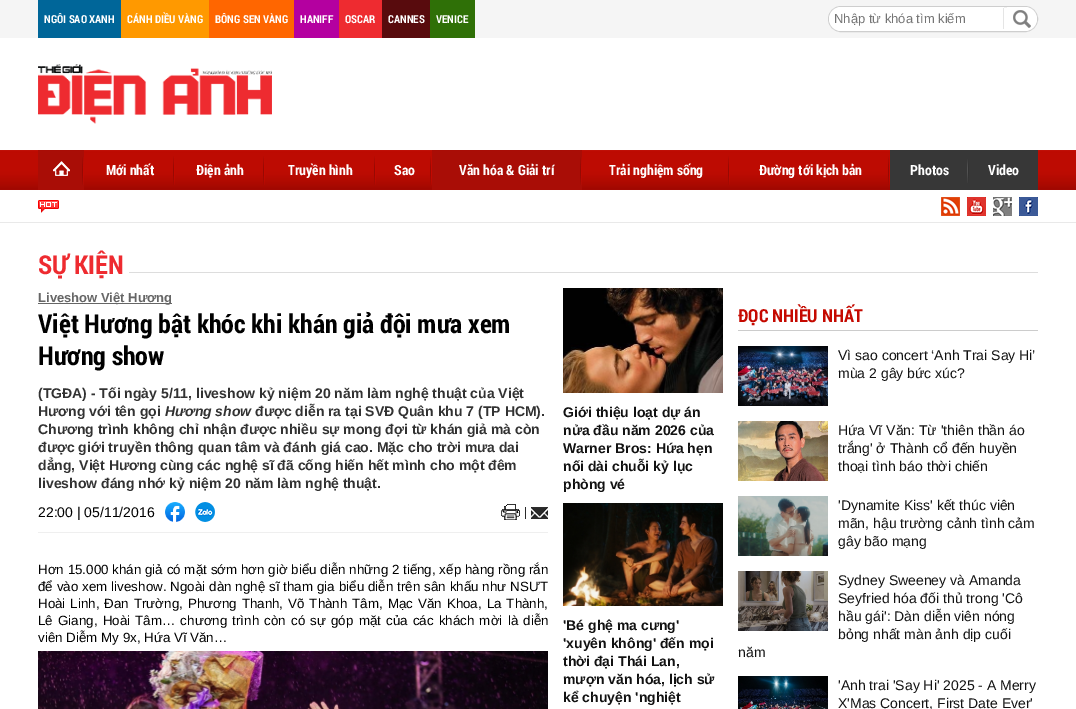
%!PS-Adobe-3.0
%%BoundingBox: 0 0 1076 709
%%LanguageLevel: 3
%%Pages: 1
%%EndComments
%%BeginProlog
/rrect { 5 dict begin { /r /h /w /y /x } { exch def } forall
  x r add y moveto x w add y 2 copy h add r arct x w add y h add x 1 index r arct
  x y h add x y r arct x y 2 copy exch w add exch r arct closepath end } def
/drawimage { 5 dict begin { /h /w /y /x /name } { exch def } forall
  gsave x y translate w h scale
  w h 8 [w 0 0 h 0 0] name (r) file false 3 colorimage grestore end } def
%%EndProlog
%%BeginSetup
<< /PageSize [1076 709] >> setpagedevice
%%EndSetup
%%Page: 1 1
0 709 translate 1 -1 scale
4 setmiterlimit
1 setgray
0 0 1076 709 rectfill
0.961 setgray
0 0 1076 38 rectfill
0 0.4 0.6 setrgbcolor
38 0 83 38 rectfill
1 0.6 0 setrgbcolor
121 0 88 38 rectfill
1 0.4 0 setrgbcolor
209 0 85 38 rectfill
0.706 0 0.627 setrgbcolor
294 0 45 38 rectfill
0.933 0.169 0.188 setrgbcolor
339 0 43 38 rectfill
0.345 0.043 0.051 setrgbcolor
382 0 48 38 rectfill
0.184 0.439 0.027 setrgbcolor
430 0 45 38 rectfill
1 setgray
828.5 6.5 209 25 12.5 rrect gsave fill grestore
0.808 setgray
stroke
1 setgray
newpath 841 7 moveto 1004 7 lineto 1004 31 lineto 841 31 lineto 834.5 31 829 25.5 829 19 curveto 829 12.5 834.5 7 841 7 curveto closepath fill
0.898 setgray
1003 8 1 21 rectfill
1 setgray
newpath 1007 7 moveto 1025 7 lineto 1031.5 7 1037 12.5 1037 19 curveto 1037 25.5 1031.5 31 1025 31 curveto 1007 31 lineto closepath fill
(images/1.raw) 1013 10 18 18 drawimage
(images/2.raw) 38 64 234 60 drawimage
(images/3.raw) 0 150 1076 40 drawimage
0.663 0.051 0.024 setrgbcolor
38 150 46 40 rectfill
(images/4.raw) 82 157 2 28 drawimage
(images/5.raw) 53 161 17 15 drawimage
(images/6.raw) 173 156 2 29 drawimage
(images/6.raw) 263 156 2 29 drawimage
(images/6.raw) 374 156 2 29 drawimage
(images/6.raw) 430 156 2 29 drawimage
432 150 150 40 rectfill
(images/4.raw) 580 157 2 28 drawimage
(images/6.raw) 728 156 2 29 drawimage
(images/6.raw) 888 156 2 29 drawimage
0.216 setgray
890 150 148 40 rectfill
(images/7.raw) 967 159 2 24 drawimage
0.914 setgray
0 222 1076 1 rectfill
(images/8.raw) 38 200 21 13 drawimage
(images/9.raw) 941 197 19 19 drawimage
(images/10.raw) 967 197 19 19 drawimage
(images/11.raw) 993 197 19 19 drawimage
(images/12.raw) 1019 197 19 19 drawimage
0.867 setgray
129 272 909 1 rectfill
0.4 setgray
38 303 134 1 rectfill
0.937 setgray
38 532 510 1 rectfill
(images/13.raw) 165 502 20 20 drawimage
(images/14.raw) 195 502 20 20 drawimage
(images/15.raw) 501 504 19 16 drawimage
0.165 setgray
525 507 1 12 rectfill
(images/16.raw) 531 507 17 12 drawimage
(images/17.raw) 38 651 510 58 drawimage
(images/18.raw) 563 288 160 105 drawimage
(images/19.raw) 563 503 160 103 drawimage
0.8 setgray
738 330 300 1 rectfill
(images/20.raw) 738 346 90 60 drawimage
(images/21.raw) 738 421 90 60 drawimage
(images/22.raw) 738 496 90 60 drawimage
(images/23.raw) 738 571 90 60 drawimage
(images/24.raw) 738 676 90 33 drawimage
/RobotoCondensed-Bold [11 0 0 -11 0 0] selectfont
1 setgray
44 23 moveto (NGÔI SAO XANH) show
127 23 moveto (CÁNH DIỀU VÀNG) show
215 23 moveto (BÔNG SEN VÀNG) show
300 23 moveto (HANIFF) show
345 23 moveto (OSCAR) show
388 23 moveto (CANNES) show
436 23 moveto (VENICE) show
/LiberationSans-Regular [13 0 0 -13 0 0] selectfont
0.459 setgray
834 23 moveto (Nhập từ khóa tìm kiếm) show
/RobotoCondensed-Bold [14 0 0 -14 0 0] selectfont
1 setgray
106 175 moveto (Mới nhất) show
196 175 moveto (Điện ảnh) show
288 175 moveto (Truyền hình) show
394 175 moveto (Sao) show
459 175 moveto (Văn hóa & Giải trí) show
609 175 moveto (Trải nghiệm sống) show
759 175 moveto (Đường tới kịch bản) show
910 175 moveto (Photos) show
988 175 moveto (Video) show
/RobotoCondensed-Bold [26 0 0 -26 0 0] selectfont
0.933 0.169 0.188 setrgbcolor
38 274 moveto (SỰ KIỆN) show
/LiberationSans-Bold [13 0 0 -13 0 0] selectfont
0.4 setgray
38 302 moveto (Liveshow Việt Hương) show
/RobotoCondensed-Bold [26 0 0 -26 0 0] selectfont
0 setgray
38 333 moveto (Việt Hương bật khóc khi khán giả đội mưa xem) show
38 365 moveto (Hương show) show
/LiberationSans-Bold [14 0 0 -14 0 0] selectfont
0.196 setgray
38 398 moveto (\(TGĐA\) - Tối ngày 5/11, liveshow kỷ niệm 20 năm làm nghệ thuật của Việt) show
38 416 moveto (Hương với tên gọi) show
/LiberationSans-BoldItalic [14 0 0 -14 0 0] selectfont
165 416 moveto (Hương show) show
/LiberationSans-Bold [14 0 0 -14 0 0] selectfont
255 416 moveto (được diễn ra tại SVĐ Quân khu 7 \(TP HCM\).) show
38 434 moveto (Chương trình không chỉ nhận được nhiều sự mong đợi từ khán giả mà còn) show
38 452 moveto (được giới truyền thông quan tâm và đánh giá cao. Mặc cho trời mưa dai) show
38 470 moveto (dẳng, Việt Hương cùng các nghệ sĩ đã cống hiến hết mình cho một đêm) show
38 488 moveto (liveshow đáng nhớ kỷ niệm 20 năm làm nghệ thuật.) show
/LiberationSans-Regular [14 0 0 -14 0 0] selectfont
0 setgray
38 517 moveto (22:00 | 05/11/2016) show
/LiberationSans-Regular [13.35 0 0 -13.35 0 0] selectfont
38 574 moveto 0.1 0 32 (Hơn 15.000 khán giả có mặt sớm hơn giờ biểu diễn những 2 tiếng, xếp hàng rồng rắn) widthshow
38 591 moveto 0.25 0 32 (để vào xem liveshow. Ngoài dàn nghệ sĩ tham gia biểu diễn trên sân khấu như NSƯT) widthshow
38 608 moveto 1.3 0 32 (Hoài Linh, Đan Trường, Phương Thanh, Võ Thành Tâm, Mạc Văn Khoa, La Thành,) widthshow
38 625 moveto 1.5 0 32 (Lê Giang, Hoài Tâm… chương trình còn có sự góp mặt của các khách mời là diễn) widthshow
38 642 moveto (viên Diễm My 9x, Hứa Vĩ Văn…) show
/LiberationSans-Bold [14 0 0 -14 0 0] selectfont
0.071 setgray
563 417 moveto (Giới thiệu loạt dự án) show
563 435 moveto (nửa đầu năm 2026 của) show
563 453 moveto (Warner Bros: Hứa hẹn) show
563 471 moveto (nối dài chuỗi kỷ lục) show
563 489 moveto (phòng vé) show
563 630 moveto ('Bé ghệ ma cưng') show
563 648 moveto ('xuyên không' đến mọi) show
563 666 moveto (thời đại Thái Lan,) show
563 684 moveto (mượn văn hóa, lịch sử) show
563 702 moveto (kể chuyện 'nghiệt) show
/RobotoCondensed-Bold [18 0 0 -18 0 0] selectfont
0.773 0.035 0 setrgbcolor
738 322 moveto (ĐỌC NHIỀU NHẤT) show
/LiberationSans-Regular [14 0 0 -14 0 0] selectfont
0.071 setgray
838 360 moveto (Vì sao concert ‘Anh Trai Say Hi’) show
838 378 moveto (mùa 2 gây bức xúc?) show
838 435 moveto (Hứa Vĩ Văn: Từ 'thiên thần áo) show
838 453 moveto (trắng' ở Thành cổ đến huyền) show
838 471 moveto (thoại tình báo thời chiến) show
838 510 moveto ('Dynamite Kiss' kết thúc viên) show
838 528 moveto (mãn, hậu trường cảnh tình cảm) show
838 546 moveto (gây bão mạng) show
838 585 moveto (Sydney Sweeney và Amanda) show
838 603 moveto (Seyfried hóa đối thủ trong 'Cô) show
838 621 moveto (hầu gái': Dàn diễn viên nóng) show
838 639 moveto (bỏng nhất màn ảnh dịp cuối) show
738 657 moveto (năm) show
838 690 moveto ('Anh trai 'Say Hi' 2025 - A Merry) show
838 708 moveto (X'Mas Concert, First Date Ever') show
showpage
%%EOF
